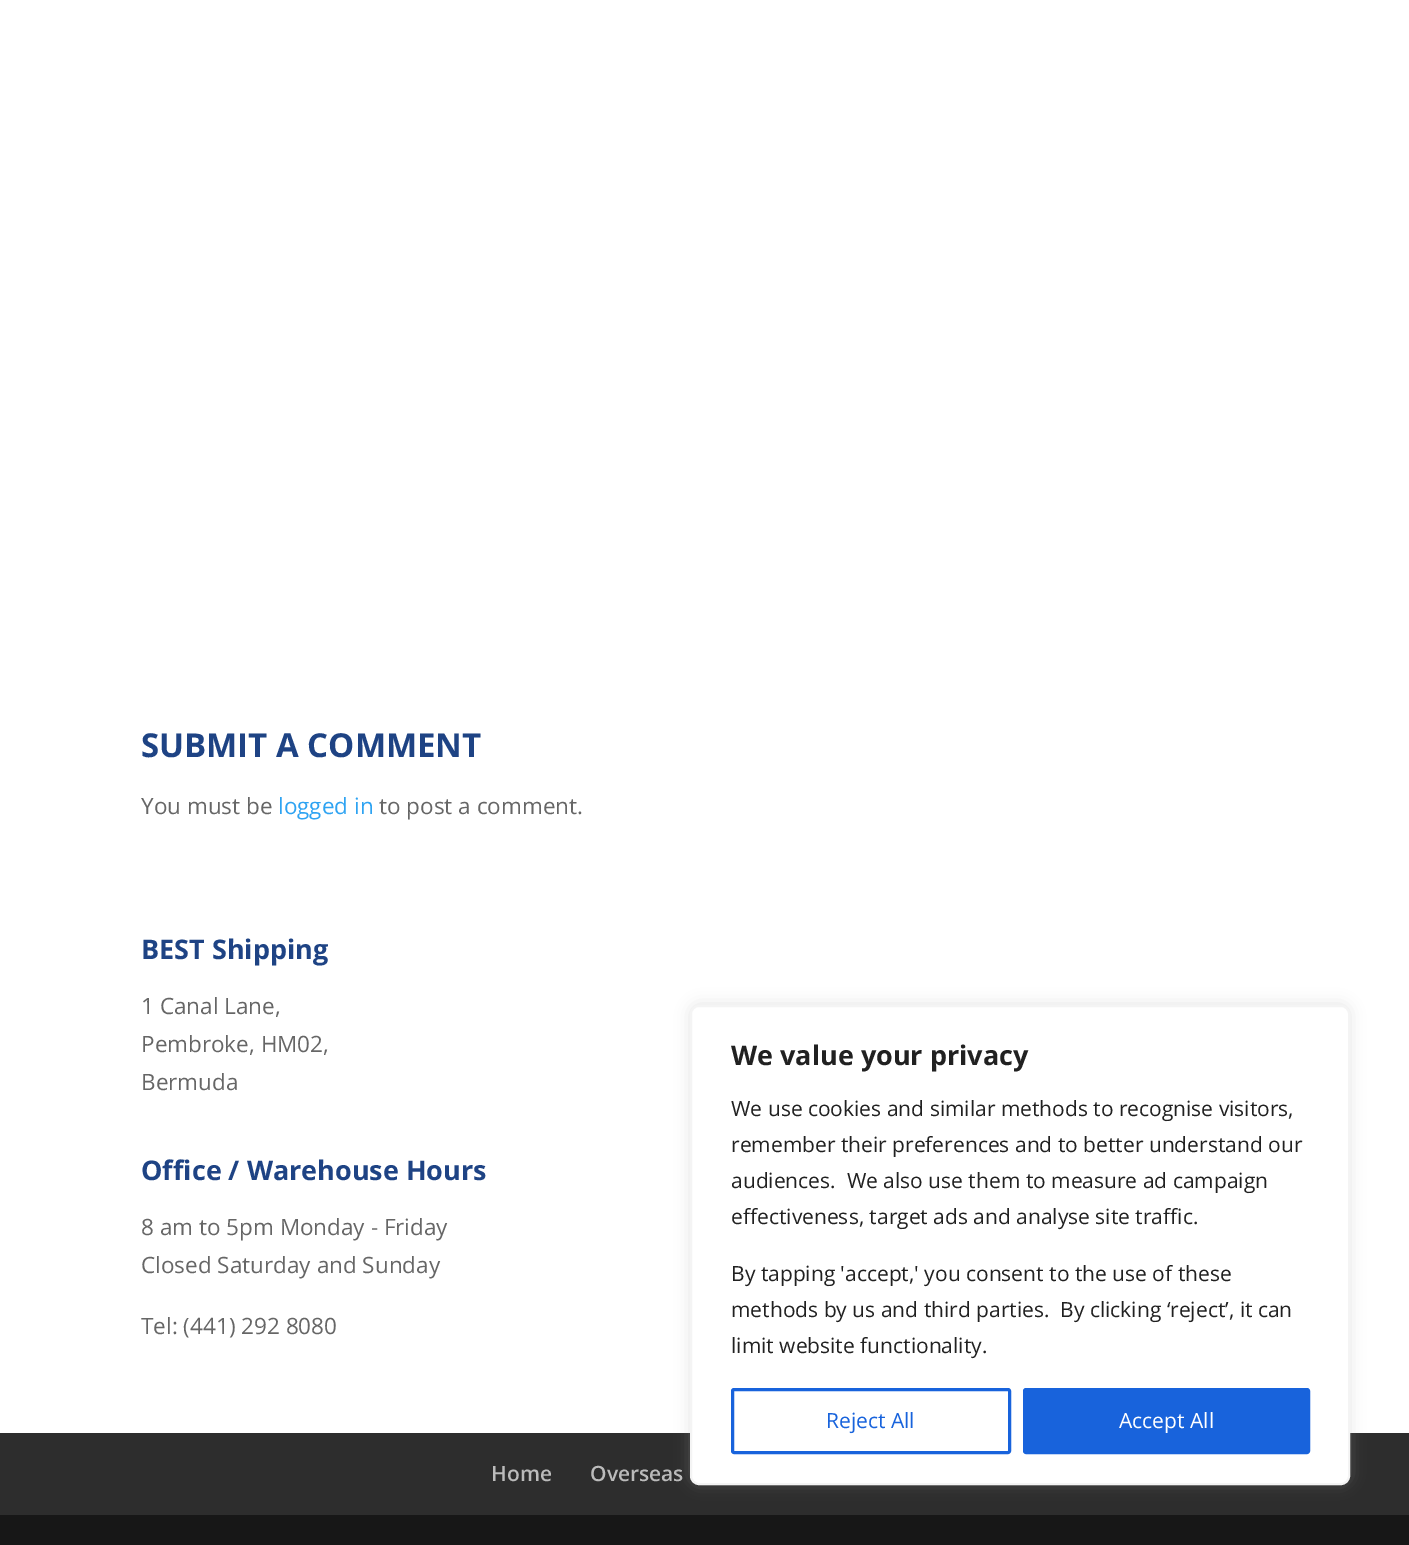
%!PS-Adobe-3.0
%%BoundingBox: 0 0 1409 1545
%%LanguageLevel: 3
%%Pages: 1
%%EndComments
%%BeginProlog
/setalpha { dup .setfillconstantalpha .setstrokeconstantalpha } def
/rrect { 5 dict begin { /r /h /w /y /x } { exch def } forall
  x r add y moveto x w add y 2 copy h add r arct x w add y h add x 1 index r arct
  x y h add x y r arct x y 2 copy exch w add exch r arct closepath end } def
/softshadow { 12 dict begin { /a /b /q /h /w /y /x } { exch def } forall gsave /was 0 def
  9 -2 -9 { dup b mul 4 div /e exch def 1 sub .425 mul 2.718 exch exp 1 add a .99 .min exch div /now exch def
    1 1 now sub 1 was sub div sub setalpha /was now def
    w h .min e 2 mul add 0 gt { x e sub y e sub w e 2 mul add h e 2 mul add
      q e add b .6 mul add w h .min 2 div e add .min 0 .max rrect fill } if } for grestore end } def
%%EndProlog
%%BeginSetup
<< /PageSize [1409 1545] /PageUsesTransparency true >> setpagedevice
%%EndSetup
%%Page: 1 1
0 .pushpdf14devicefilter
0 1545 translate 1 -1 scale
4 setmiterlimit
1 setgray
0 0 1409 1545 rectfill
0.176 setgray
0 1433 1409 82 rectfill
0.09 setgray
0 1515 1409 30 rectfill
0.675 0.671 0.671 setrgbcolor
690 1004 660 480 9 7.5 0.3 softshadow
1 setgray
691 1006 658 478 8 rrect gsave fill grestore
0.957 setgray
2 setlinewidth
stroke
0.094 0.388 0.863 setrgbcolor
3 setlinewidth
732.5 1389.5 277 63 1.5 rrect stroke
1024.5 1389.5 284 63 1.5 rrect gsave fill grestore
stroke
/OpenSans-Bold [33 0 0 -33 0 0] selectfont
0.118 0.263 0.518 setrgbcolor
141 757 moveto (SUBMIT A COMMENT) show
/OpenSans-Regular [22.5 0 0 -22.5 0 0] selectfont
0.4 setgray
141 814 moveto (You must be) show
0.18 0.639 0.949 setrgbcolor
278 814 moveto (logged in) show
0.4 setgray
379 814 moveto (to post a comment.) show
/OpenSans-Bold [27 0 0 -27 0 0] selectfont
0.118 0.263 0.518 setrgbcolor
141 959 moveto (BEST Shipping) show
/OpenSans-Regular [22.5 0 0 -22.5 0 0] selectfont
0.4 setgray
141 1014 moveto (1 Canal Lane,) show
141 1052 moveto (Pembroke, HM02,) show
141 1090 moveto (Bermuda) show
/OpenSans-Bold [27 0 0 -27 0 0] selectfont
0.118 0.263 0.518 setrgbcolor
141 1180 moveto (Office / Warehouse Hours) show
/OpenSans-Regular [22.5 0 0 -22.5 0 0] selectfont
0.4 setgray
141 1235 moveto (8 am to 5pm Monday - Friday) show
141 1273 moveto (Closed Saturday and Sunday) show
141 1334 moveto (Tel: \(441\) 292 8080) show
/OpenSans-SemiBold [21 0 0 -21 0 0] selectfont
0.733 setgray
491 1481 moveto (Home) show
590 1481 moveto (Overseas) show
/OpenSans-Bold [27 0 0 -27 0 0] selectfont
0.129 setgray
731 1065 moveto (We value your privacy) show
/OpenSans-Regular [21 0 0 -21 0 0] selectfont
731 1116 moveto (We use cookies and similar methods to recognise visitors,) show
731 1152 moveto (remember their preferences and to better understand our) show
731 1188 moveto (audiences.  We also use them to measure ad campaign) show
731 1224 moveto (effectiveness, target ads and analyse site traffic.) show
731 1281 moveto (By tapping 'accept,' you consent to the use of these) show
731 1317 moveto (methods by us and third parties.  By clicking ‘reject’, it can) show
731 1353 moveto (limit website functionality.) show
0.094 0.388 0.863 setrgbcolor
826 1428 moveto (Reject All) show
1 setgray
1119 1428 moveto (Accept All) show
.poppdf14devicefilter showpage
%%EOF
